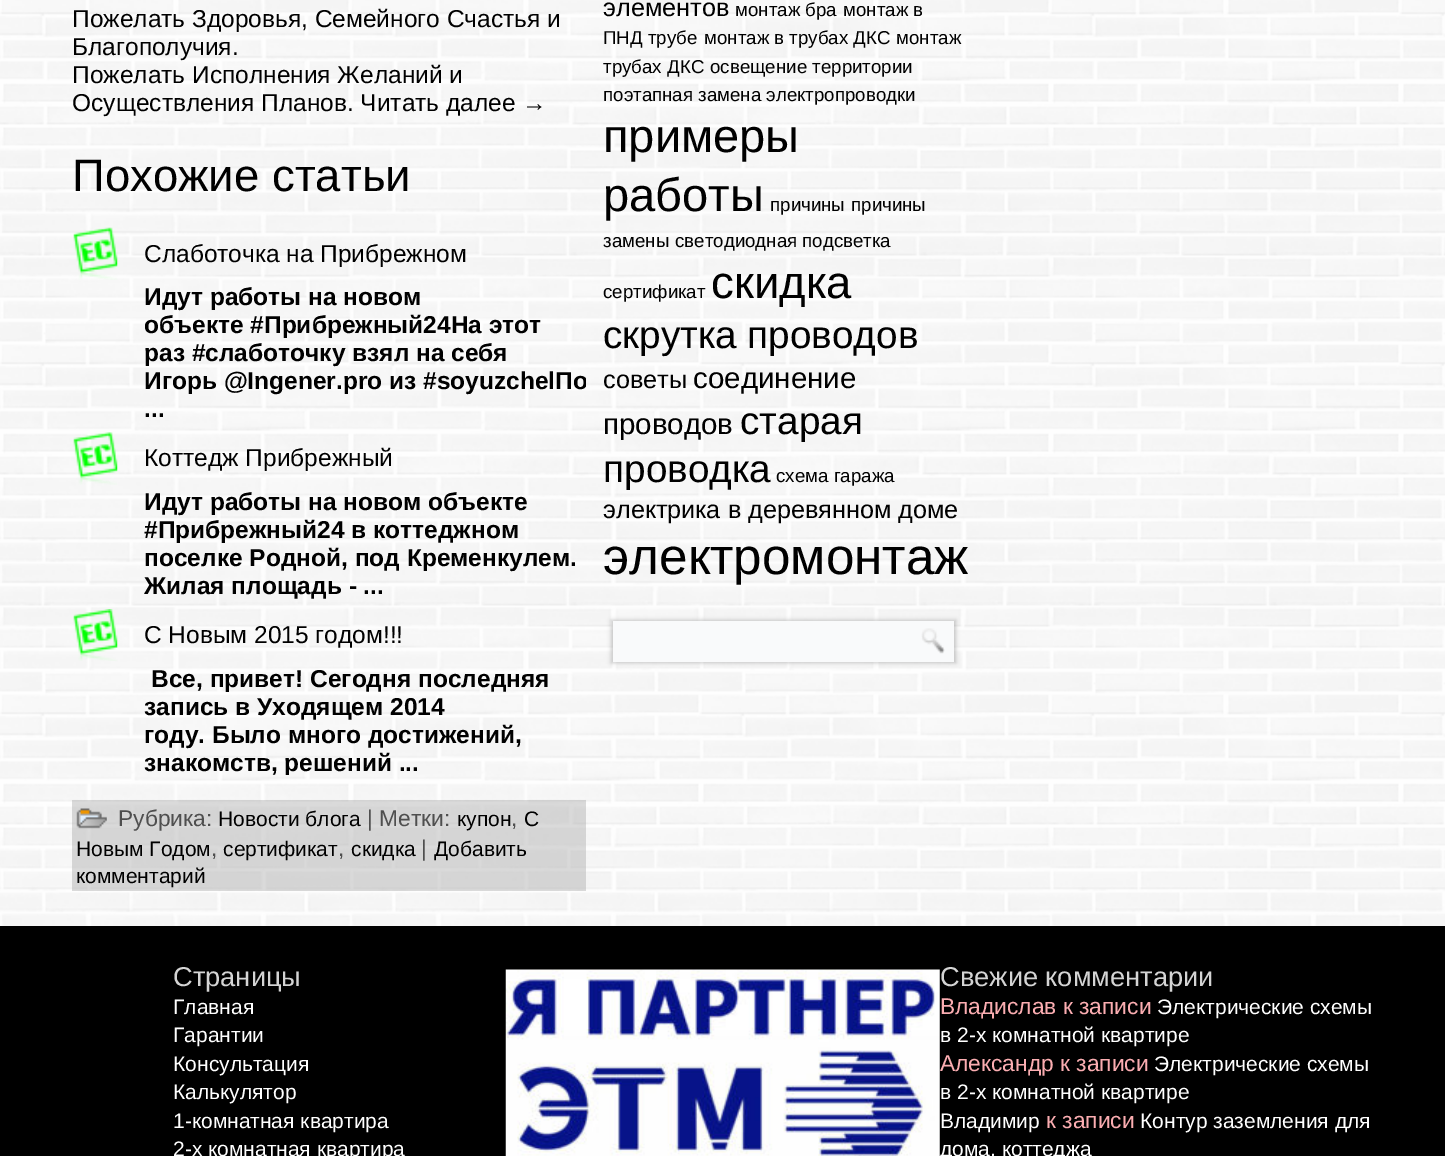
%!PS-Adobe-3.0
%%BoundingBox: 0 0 1445 1156
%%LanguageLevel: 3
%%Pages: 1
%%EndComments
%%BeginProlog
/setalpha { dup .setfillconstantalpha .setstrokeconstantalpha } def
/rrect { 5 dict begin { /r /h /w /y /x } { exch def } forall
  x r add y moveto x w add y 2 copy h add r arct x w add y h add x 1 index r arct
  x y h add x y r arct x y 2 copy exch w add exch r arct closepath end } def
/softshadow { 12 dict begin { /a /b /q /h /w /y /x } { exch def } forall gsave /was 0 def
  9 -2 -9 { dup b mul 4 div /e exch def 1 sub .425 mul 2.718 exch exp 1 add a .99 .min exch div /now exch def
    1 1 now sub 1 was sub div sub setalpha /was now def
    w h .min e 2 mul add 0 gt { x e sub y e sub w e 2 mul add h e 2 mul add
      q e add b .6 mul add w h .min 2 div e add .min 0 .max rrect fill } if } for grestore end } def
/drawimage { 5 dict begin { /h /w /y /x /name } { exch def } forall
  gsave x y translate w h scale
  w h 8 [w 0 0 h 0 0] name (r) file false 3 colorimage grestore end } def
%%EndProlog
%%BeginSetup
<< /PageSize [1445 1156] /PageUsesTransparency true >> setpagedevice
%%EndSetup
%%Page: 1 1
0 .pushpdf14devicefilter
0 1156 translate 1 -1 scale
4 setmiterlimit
1 setgray
0 0 1445 1156 rectfill
(images/1.raw) 0 0 1445 926 drawimage
(images/2.raw) 73 227 45 53 drawimage
(images/3.raw) 73 432 45 53 drawimage
(images/4.raw) 73 609 45 52 drawimage
0.4 setalpha
0.639 setgray
72 800 514 91 rectfill
1 setalpha
(images/5.raw) 76 808 31 21 drawimage
0 setgray
611 620 345 43 0 2 0.2 softshadow
0.976 0.98 0.984 setrgbcolor
613 621 341 41 rectfill
(images/6.raw) 921 628 24 26 drawimage
0 setgray
0 926 1445 230 rectfill
(images/7.raw) 505 969 435 187 drawimage
/LiberationSans-Regular [24.5 0 0 -24.5 0 0] selectfont
72 27 moveto (Пожелать Здоровья, Семейного Счастья и) show
72 55 moveto (Благополучия.) show
72 83 moveto (Пожелать Исполнения Желаний и) show
72 111 moveto (Осуществления Планов. Читать далее →) show
/LiberationSans-Regular [45.5 0 0 -45.5 0 0] selectfont
72 191 moveto (Похожие статьи) show
/LiberationSans-Regular [24.5 0 0 -24.5 0 0] selectfont
144 262 moveto (Слаботочка на Прибрежном) show
/LiberationSans-Bold [24.5 0 0 -24.5 0 0] selectfont
144 305 moveto (Идут работы на новом) show
144 333 moveto (объекте #Прибрежный24На этот) show
144 361 moveto (раз #слаботочку взял на себя) show
gsave
74 228 512 194 rectclip
144 389 moveto (Игорь @Ingener.pro из #soyuzchelПо) show
grestore
144 417 moveto (...) show
/LiberationSans-Regular [24.5 0 0 -24.5 0 0] selectfont
144 466 moveto (Коттедж Прибрежный) show
/LiberationSans-Bold [24.5 0 0 -24.5 0 0] selectfont
144 510 moveto (Идут работы на новом объекте) show
144 538 moveto (#Прибрежный24 в коттеджном) show
144 566 moveto (поселке Родной, под Кременкулем.) show
144 594 moveto (Жилая площадь - ...) show
/LiberationSans-Regular [24.5 0 0 -24.5 0 0] selectfont
144 643 moveto (C Новым 2015 годом!!!) show
/LiberationSans-Bold [24.5 0 0 -24.5 0 0] selectfont
151 687 moveto (Все, привет! Сегодня последняя) show
144 715 moveto (запись в Уходящем 2014) show
144 743 moveto (году. Было много достижений,) show
gsave
74 609 512 166 rectclip
144 771 moveto (знакомств, решений ...) show
grestore
/LiberationSans-Regular [22.75 0 0 -22.75 0 0] selectfont
0.31 setgray
118 826 moveto (Рубрика:) show
/LiberationSans-Regular [21 0 0 -21 0 0] selectfont
0 setgray
218 826 moveto (Новости блога) show
/LiberationSans-Regular [22.75 0 0 -22.75 0 0] selectfont
0.31 setgray
367 826 moveto (| Метки:) show
/LiberationSans-Regular [21 0 0 -21 0 0] selectfont
0 setgray
457 826 moveto (купон) show
/LiberationSans-Regular [22.75 0 0 -22.75 0 0] selectfont
0.31 setgray
511 826 moveto (,) show
/LiberationSans-Regular [21 0 0 -21 0 0] selectfont
0 setgray
524 826 moveto (С) show
76 856 moveto (Новым Годом) show
/LiberationSans-Regular [22.75 0 0 -22.75 0 0] selectfont
0.31 setgray
211 856 moveto (,) show
/LiberationSans-Regular [21 0 0 -21 0 0] selectfont
0 setgray
223 856 moveto (сертификат) show
/LiberationSans-Regular [22.75 0 0 -22.75 0 0] selectfont
0.31 setgray
338 856 moveto (,) show
/LiberationSans-Regular [21 0 0 -21 0 0] selectfont
0 setgray
351 856 moveto (скидка) show
/LiberationSans-Regular [22.75 0 0 -22.75 0 0] selectfont
0.31 setgray
421 856 moveto (|) show
/LiberationSans-Regular [21 0 0 -21 0 0] selectfont
0 setgray
434 856 moveto (Добавить) show
76 883 moveto (комментарий) show
/LiberationSans-Regular [25.25 0 0 -25.25 0 0] selectfont
603 16 moveto (элементов) show
/LiberationSans-Regular [18.7 0 0 -18.7 0 0] selectfont
735 16 moveto (монтаж бра) show
843 16 moveto (монтаж в) show
603 44 moveto (ПНД трубе) show
704 44 moveto (монтаж в трубах ДКС) show
896 44 moveto (монтаж) show
603 73 moveto (трубах ДКС) show
710 73 moveto (освещение территории) show
603 101 moveto (поэтапная замена электропроводки) show
/LiberationSans-Regular [47 0 0 -47 0 0] selectfont
603 152 moveto (примеры) show
603 211 moveto (работы) show
/LiberationSans-Regular [18.7 0 0 -18.7 0 0] selectfont
770 211 moveto (причины) show
851 211 moveto (причины) show
603 247 moveto (замены) show
675 247 moveto (светодиодная подсветка) show
603 298 moveto (сертификат) show
/LiberationSans-Regular [45.5 0 0 -45.5 0 0] selectfont
711 298 moveto (скидка) show
/LiberationSans-Regular [38.75 0 0 -38.75 0 0] selectfont
603 348 moveto (скрутка проводов) show
/LiberationSans-Regular [25.25 0 0 -25.25 0 0] selectfont
603 388 moveto (советы) show
/LiberationSans-Regular [29.5 0 0 -29.5 0 0] selectfont
693 388 moveto (соединение) show
603 434 moveto (проводов) show
/LiberationSans-Regular [38.75 0 0 -38.75 0 0] selectfont
740 434 moveto (старая) show
603 482 moveto (проводка) show
/LiberationSans-Regular [18.7 0 0 -18.7 0 0] selectfont
776 482 moveto (схема гаража) show
/LiberationSans-Regular [25.25 0 0 -25.25 0 0] selectfont
603 518 moveto (электрика в деревянном доме) show
/LiberationSans-Regular [51.25 0 0 -51.25 0 0] selectfont
603 574 moveto (электромонтаж) show
/LiberationSans-Regular [27.25 0 0 -27.25 0 0] selectfont
0.831 setgray
173 986 moveto (Страницы) show
/LiberationSans-Regular [21 0 0 -21 0 0] selectfont
1 setgray
173 1014 moveto (Главная) show
173 1042 moveto (Гарантии) show
173 1071 moveto (Консультация) show
173 1099 moveto (Калькулятор) show
173 1128 moveto (1-комнатная квартира) show
173 1156 moveto (2-х комнатная квартира) show
/LiberationSans-Regular [27.25 0 0 -27.25 0 0] selectfont
0.831 setgray
940 986 moveto (Свежие комментарии) show
/LiberationSans-Regular [22.75 0 0 -22.75 0 0] selectfont
0.984 0.678 0.694 setrgbcolor
940 1014 moveto (Владислав к записи) show
/LiberationSans-Regular [21 0 0 -21 0 0] selectfont
1 setgray
1157 1014 moveto (Электрические схемы) show
940 1042 moveto (в 2-х комнатной квартире) show
/LiberationSans-Regular [22.75 0 0 -22.75 0 0] selectfont
0.984 0.678 0.694 setrgbcolor
940 1071 moveto (Александр к записи) show
/LiberationSans-Regular [21 0 0 -21 0 0] selectfont
1 setgray
1154 1071 moveto (Электрические схемы) show
940 1099 moveto (в 2-х комнатной квартире) show
940 1128 moveto (Владимир) show
/LiberationSans-Regular [22.75 0 0 -22.75 0 0] selectfont
0.984 0.678 0.694 setrgbcolor
1046 1128 moveto (к записи) show
/LiberationSans-Regular [21 0 0 -21 0 0] selectfont
1 setgray
1140 1128 moveto (Контур заземления для) show
940 1156 moveto (дома, коттеджа) show
.poppdf14devicefilter showpage
%%EOF
